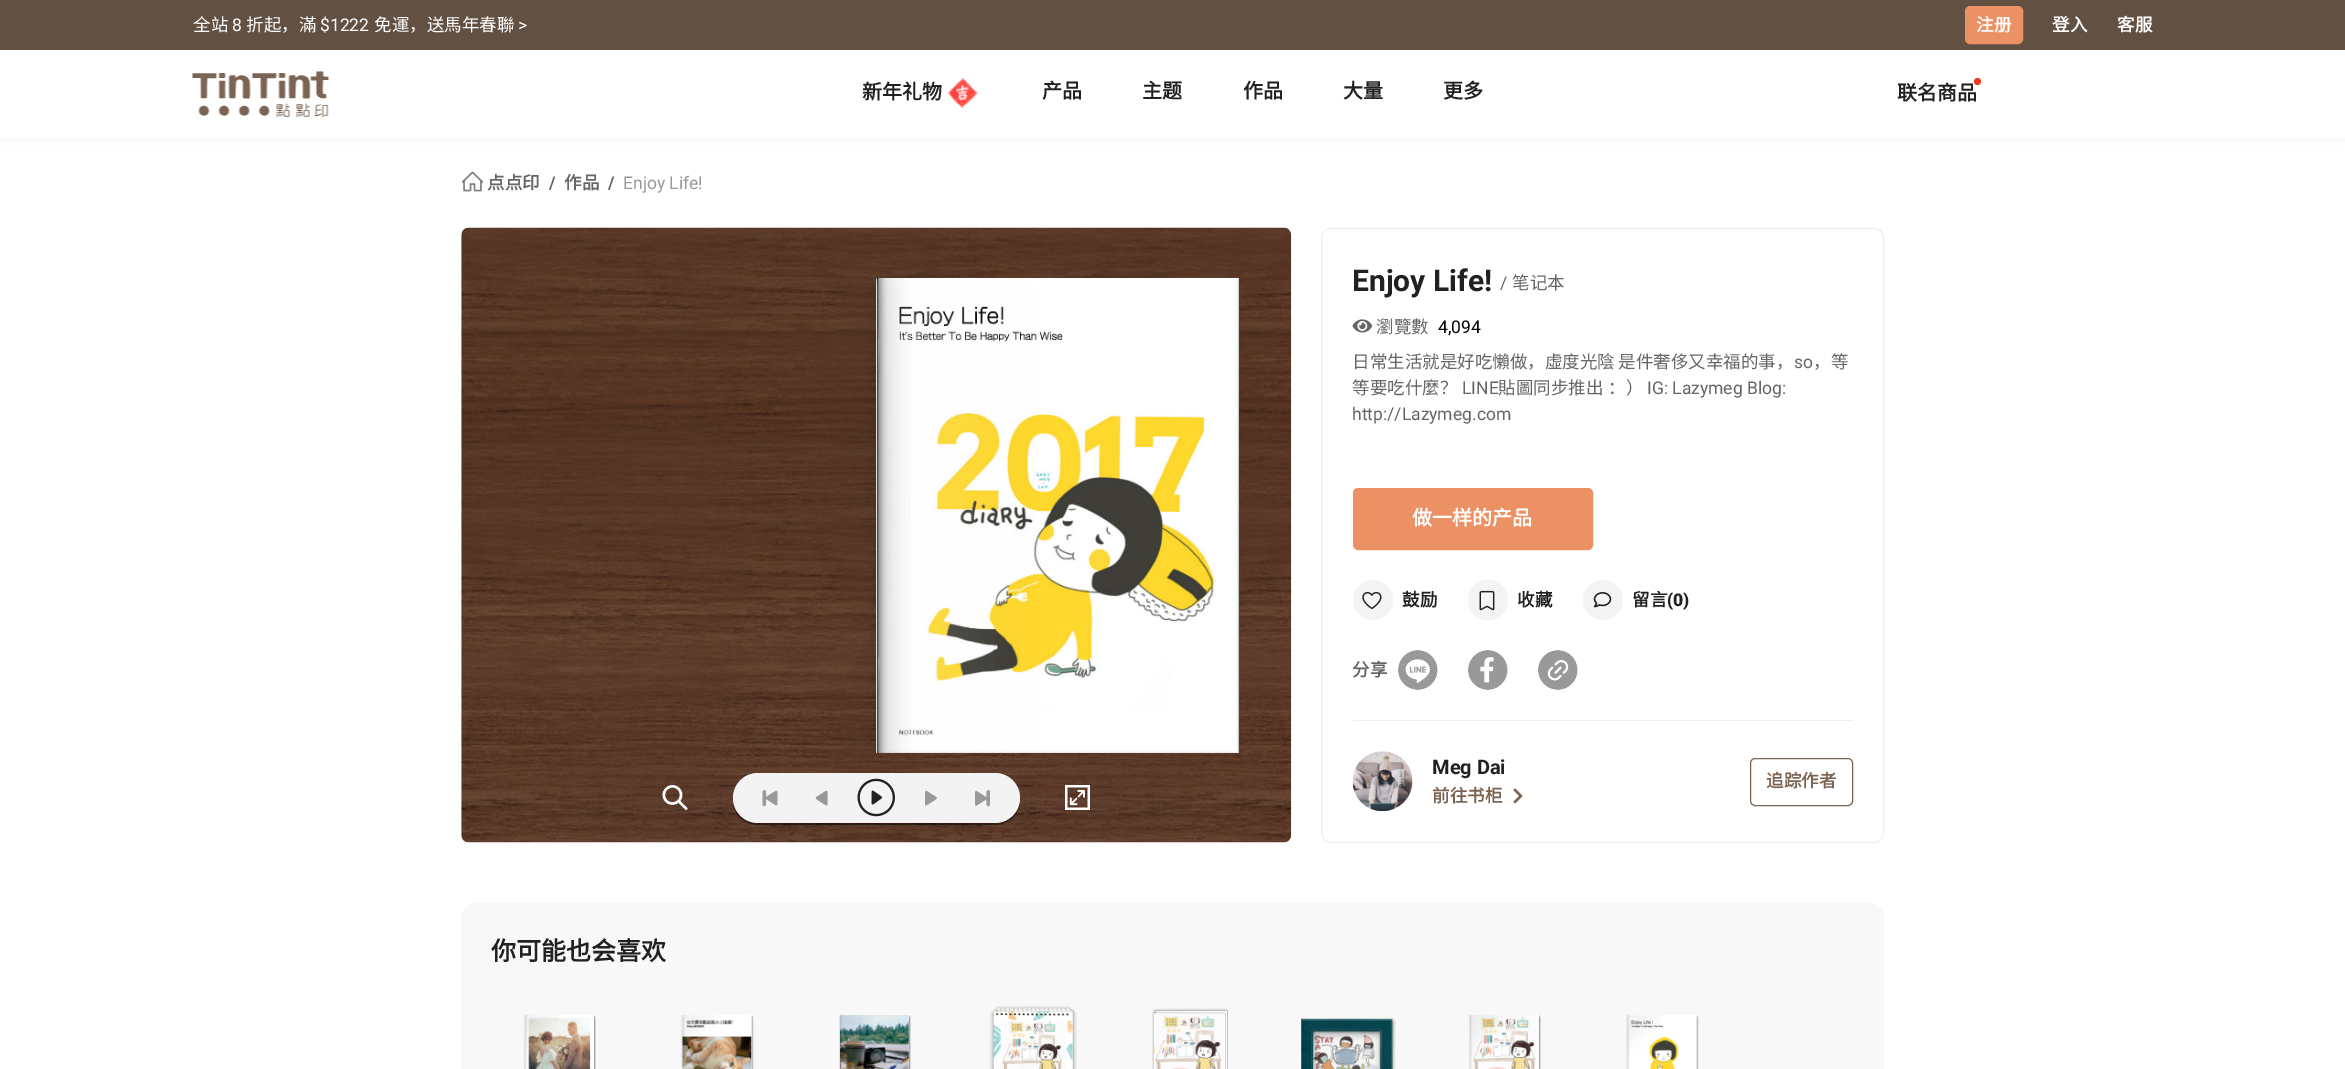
%!PS-Adobe-3.0
%%BoundingBox: 0 0 2345 1069
%%LanguageLevel: 3
%%Pages: 1
%%EndComments
%%BeginProlog
/setalpha { dup .setfillconstantalpha .setstrokeconstantalpha } def
/rrect { 5 dict begin { /r /h /w /y /x } { exch def } forall
  x r add y moveto x w add y 2 copy h add r arct x w add y h add x 1 index r arct
  x y h add x y r arct x y 2 copy exch w add exch r arct closepath end } def
/softshadow { 12 dict begin { /a /b /q /h /w /y /x } { exch def } forall gsave /was 0 def
  9 -2 -9 { dup b mul 4 div /e exch def 1 sub .425 mul 2.718 exch exp 1 add a .99 .min exch div /now exch def
    1 1 now sub 1 was sub div sub setalpha /was now def
    w h .min e 2 mul add 0 gt { x e sub y e sub w e 2 mul add h e 2 mul add
      q e add b .6 mul add w h .min 2 div e add .min 0 .max rrect fill } if } for grestore end } def
/drawimage { 5 dict begin { /h /w /y /x /name } { exch def } forall
  gsave x y translate w h scale
  w h 8 [w 0 0 h 0 0] name (r) file false 3 colorimage grestore end } def
%%EndProlog
%%BeginSetup
<< /PageSize [2345 1069] /PageUsesTransparency true >> setpagedevice
%%EndSetup
%%Page: 1 1
0 .pushpdf14devicefilter
0 1069 translate 1 -1 scale
4 setmiterlimit
1 setgray
0 0 2345 1069 rectfill
0.384 0.314 0.263 setrgbcolor
0 0 2345 50 rectfill
0.922 0.569 0.392 setrgbcolor
1965.5 6.5 57 37 4.5 rrect gsave fill grestore
stroke
0 setgray
0 54 2345 87 0 5 0.04 softshadow
1 setgray
0 51 2345 87 rectfill
(images/1.raw) 192 71 137 47 drawimage
(images/2.raw) 947 77 31 31 drawimage
(images/3.raw) 461 171 23 21 drawimage
(images/4.raw) 461 227 831 616 drawimage
gsave
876 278 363 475 rectclip
0 setgray
876 278 363 475 0 12.5 0.2 softshadow
grestore
gsave
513 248 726 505 rectclip
0 setgray
876 288 363 475 0 10 0.15 softshadow
grestore
(images/5.raw) 876 278 363 475 drawimage
0.5 setalpha
0 setgray
newpath 733 804 moveto 735 816 745 825 758 825 curveto 995 825 lineto 1009 825 1020 814 1020 800 curveto 1020 799 lineto 1019 812 1008 822 995 822 curveto 758 822 lineto 746 822 736 814 733 804 curveto closepath fill
1 setalpha
0.953 setgray
733 773 287 50 25 rrect fill
(images/6.raw) 662 785 26 25 drawimage
(images/7.raw) 762 790 16 17 drawimage
(images/8.raw) 815 790 13 16 drawimage
(images/9.raw) 857 778 38 39 drawimage
(images/10.raw) 925 790 12 16 drawimage
(images/11.raw) 975 790 15 17 drawimage
(images/12.raw) 1065 785 25 25 drawimage
0.937 setgray
1321.5 228.5 562 614 9.5 rrect stroke
(images/13.raw) 1352 319 21 14 drawimage
0.922 0.569 0.392 setrgbcolor
1353.5 488.5 239 61 4.5 rrect gsave fill grestore
stroke
0.957 setgray
newpath 1373 600 20 0 360 arc closepath fill
(images/14.raw) 1362 591 20 19 drawimage
newpath 1488 600 20 0 360 arc closepath fill
(images/15.raw) 1479 590 16 21 drawimage
newpath 1603 600 20 0 360 arc closepath fill
(images/16.raw) 1593 592 19 16 drawimage
(images/17.raw) 1398 650 40 40 drawimage
(images/18.raw) 1468 650 40 40 drawimage
(images/19.raw) 1538 650 40 40 drawimage
0.937 setgray
1353 720 500 1 rectfill
(images/20.raw) 1352 751 61 61 drawimage
(images/21.raw) 1513 788 10 16 drawimage
0.482 0.392 0.325 setrgbcolor
1750.5 758.5 102 47 4.5 rrect stroke
0.973 setgray
461 903 1423 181 15 rrect fill
(images/22.raw) 524 1015 72 54 drawimage
(images/23.raw) 525 1015 69 54 drawimage
(images/24.raw) 525 1015 33 54 drawimage
(images/25.raw) 681 1015 73 54 drawimage
(images/26.raw) 682 1015 70 54 drawimage
(images/27.raw) 682 1015 33 54 drawimage
(images/22.raw) 839 1015 72 54 drawimage
(images/28.raw) 840 1015 69 54 drawimage
(images/29.raw) 840 1015 33 54 drawimage
(images/30.raw) 989 1006 88 63 drawimage
(images/31.raw) 993 1011 80 58 drawimage
(images/32.raw) 996 1011 73 5 drawimage
(images/33.raw) 1152 1008 76 61 drawimage
(images/34.raw) 1153 1013 72 56 drawimage
(images/35.raw) 1301 1018 95 51 drawimage
(images/36.raw) 1301 1018 92 51 drawimage
(images/22.raw) 1469 1015 72 54 drawimage
(images/37.raw) 1470 1015 69 54 drawimage
(images/38.raw) 1470 1015 33 54 drawimage
(images/25.raw) 1626 1015 73 54 drawimage
(images/39.raw) 1627 1015 70 54 drawimage
(images/40.raw) 1627 1015 33 54 drawimage
/NotoSansCJKSC-Regular [17.5 0 0 -17.5 0 0] selectfont
1 setgray
193 31 moveto (全站) show
/Roboto-Regular [17.5 0 0 -17.5 0 0] selectfont
232 31 moveto (8) show
/NotoSansCJKSC-Regular [17.5 0 0 -17.5 0 0] selectfont
246 31 moveto (折起，滿) show
/Roboto-Regular [17.5 0 0 -17.5 0 0] selectfont
320 31 moveto ($1222) show
/NotoSansCJKSC-Regular [17.5 0 0 -17.5 0 0] selectfont
374 31 moveto (免運，送馬年春聯) show
/Roboto-Regular [17.5 0 0 -17.5 0 0] selectfont
518 31 moveto (>) show
/NotoSansCJKSC-Bold [17.5 0 0 -17.5 0 0] selectfont
1976 31 moveto (注册) show
2052 31 moveto (登入) show
2117 31 moveto (客服) show
/NotoSansCJKSC-Bold [20 0 0 -20 0 0] selectfont
0.129 setgray
862 99 moveto (新年礼物) show
1042 98 moveto (产品) show
1142 98 moveto (主题) show
1243 98 moveto (作品) show
1343 98 moveto (大量) show
1443 98 moveto (更多) show
1897 100 moveto (联名商品) show
0.922 0.243 0.141 setrgbcolor
newpath 1977.5 81.5 3.5 0 360 arc closepath fill
/NotoSansCJKSC-Bold [17.5 0 0 -17.5 0 0] selectfont
0.4 setgray
487 189 moveto (点点印) show
/Roboto-Bold [17.5 0 0 -17.5 0 0] selectfont
549 189 moveto (/) show
/NotoSansCJKSC-Bold [17.5 0 0 -17.5 0 0] selectfont
564 189 moveto (作品) show
/Roboto-Bold [17.5 0 0 -17.5 0 0] selectfont
608 189 moveto (/) show
/Roboto-Regular [17.5 0 0 -17.5 0 0] selectfont
0.6 setgray
623 189 moveto (Enjoy Life!) show
/Roboto-Bold [30 0 0 -30 0 0] selectfont
0.129 setgray
1352 291 moveto (Enjoy Life!) show
/Roboto-Regular [17.5 0 0 -17.5 0 0] selectfont
0.4 setgray
1500 289 moveto (/) show
/NotoSansCJKSC-Regular [17.5 0 0 -17.5 0 0] selectfont
1512 289 moveto (笔记本) show
1376 333 moveto (瀏覽數) show
/Roboto-Regular [17.5 0 0 -17.5 0 0] selectfont
0 setgray
1438 333 moveto (4,094) show
/NotoSansCJKSC-Regular [17.5 0 0 -17.5 0 0] selectfont
0.4 setgray
1352 368 moveto (日常生活就是好吃懶做，虛度光陰 是件奢侈又幸福的事，) show
/Roboto-Regular [17.5 0 0 -17.5 0 0] selectfont
1794 368 moveto (so) show
/NotoSansCJKSC-Regular [17.5 0 0 -17.5 0 0] selectfont
1813 368 moveto (，等) show
1352 394 moveto (等要吃什麼？) show
/Roboto-Regular [17.5 0 0 -17.5 0 0] selectfont
1462 394 moveto (LINE) show
/NotoSansCJKSC-Regular [17.5 0 0 -17.5 0 0] selectfont
1498 394 moveto (貼圖同步推出) show
1608 394 moveto (：）) show
/Roboto-Regular [17.5 0 0 -17.5 0 0] selectfont
1647 394 moveto (IG: Lazymeg Blog:) show
1352 420 moveto (http://Lazymeg.com) show
/NotoSansCJKSC-Bold [20 0 0 -20 0 0] selectfont
1 setgray
1412 525 moveto (做一样的产品) show
/NotoSansCJKSC-Bold [17.5 0 0 -17.5 0 0] selectfont
0.129 setgray
1402 606 moveto (鼓励) show
1517 606 moveto (收藏) show
1632 606 moveto (留言) show
/Roboto-Black [17.5 0 0 -17.5 0 0] selectfont
1667 606 moveto (\(0\)) show
/NotoSansCJKSC-Bold [17.5 0 0 -17.5 0 0] selectfont
0.4 setgray
1352 676 moveto (分享) show
/Roboto-Bold [20 0 0 -20 0 0] selectfont
0.129 setgray
1432 774 moveto (Meg Dai) show
/NotoSansCJKSC-Bold [17.5 0 0 -17.5 0 0] selectfont
0.482 0.392 0.325 setrgbcolor
1432 802 moveto (前往书柜) show
1766 787 moveto (追踪作者) show
/NotoSansCJKSC-Bold [25 0 0 -25 0 0] selectfont
0.129 setgray
491 960 moveto (你可能也会喜欢) show
.poppdf14devicefilter showpage
%%EOF
